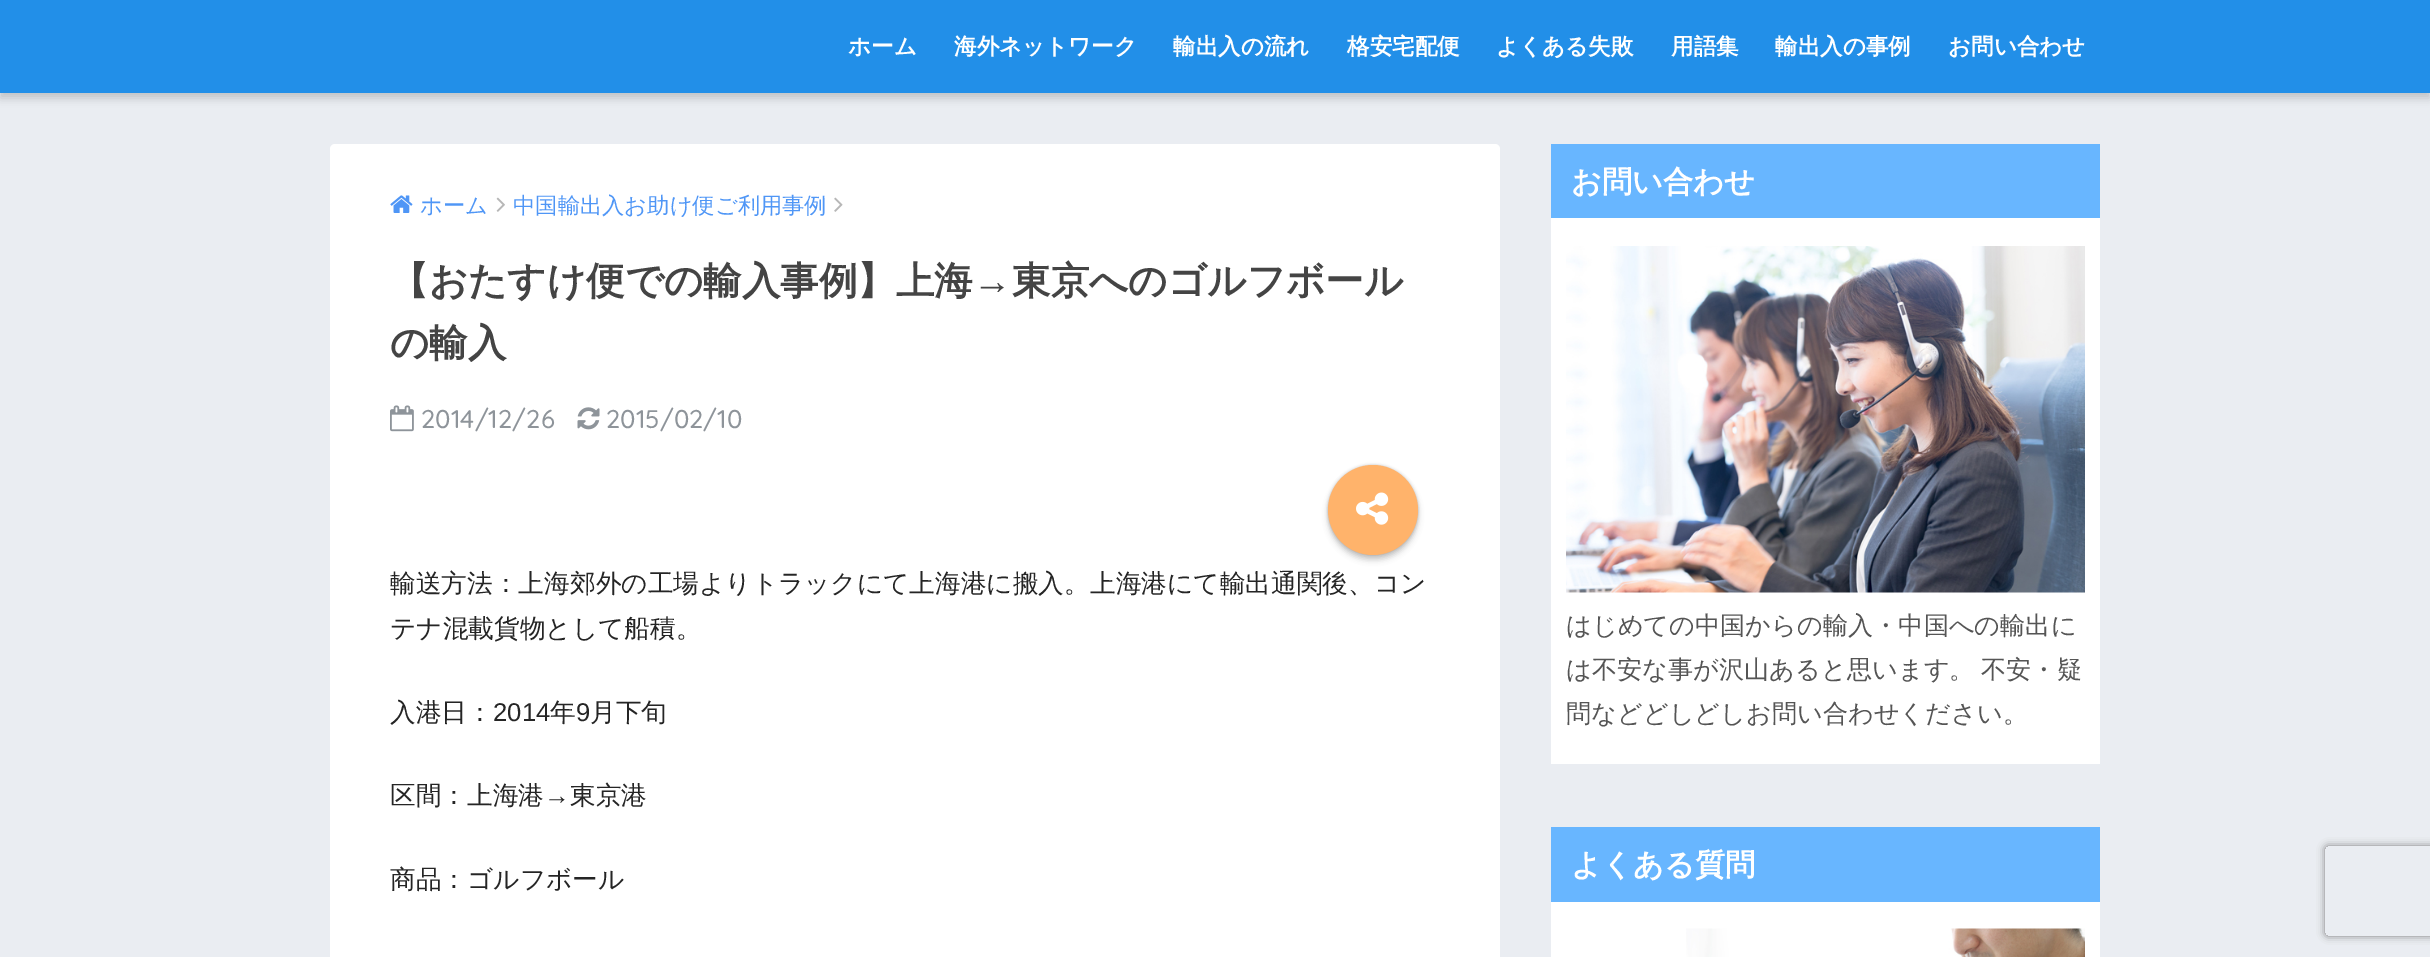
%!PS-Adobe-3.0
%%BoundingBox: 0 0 2430 957
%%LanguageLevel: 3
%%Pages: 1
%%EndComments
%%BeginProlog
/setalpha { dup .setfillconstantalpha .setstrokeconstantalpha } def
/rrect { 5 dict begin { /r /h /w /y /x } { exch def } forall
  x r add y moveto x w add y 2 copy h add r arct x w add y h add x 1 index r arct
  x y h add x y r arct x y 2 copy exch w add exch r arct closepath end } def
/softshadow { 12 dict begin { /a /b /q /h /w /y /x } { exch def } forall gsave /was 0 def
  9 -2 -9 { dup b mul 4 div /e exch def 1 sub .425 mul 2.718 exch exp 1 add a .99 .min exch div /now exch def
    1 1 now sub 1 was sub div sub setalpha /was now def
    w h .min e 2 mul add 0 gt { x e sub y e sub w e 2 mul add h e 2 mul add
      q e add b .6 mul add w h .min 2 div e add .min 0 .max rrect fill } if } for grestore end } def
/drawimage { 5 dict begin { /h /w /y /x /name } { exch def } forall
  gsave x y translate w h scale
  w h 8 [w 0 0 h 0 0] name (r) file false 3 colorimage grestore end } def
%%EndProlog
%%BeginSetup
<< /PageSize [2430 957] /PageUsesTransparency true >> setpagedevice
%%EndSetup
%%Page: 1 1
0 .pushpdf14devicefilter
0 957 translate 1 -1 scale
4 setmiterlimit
0.918 0.929 0.949 setrgbcolor
0 0 2430 957 rectfill
0 setgray
0 5 2430 93 0 4.5 0.18 softshadow
0.133 0.561 0.91 setrgbcolor
0 0 2430 93 rectfill
1 setgray
330 144 1170 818 5 rrect fill
(images/1.raw) 390 195 23 18 drawimage
(images/2.raw) 496 197 9 15 drawimage
(images/3.raw) 834 197 9 15 drawimage
(images/4.raw) 390 405 24 27 drawimage
(images/5.raw) 577 407 23 23 drawimage
0 setgray
1328 465 90 90 45 1.5 0.2 softshadow
1328 470 90 90 45 3 0.2 softshadow
1 0.702 0.42 setrgbcolor
newpath 1373 510 45 0 360 arc closepath fill
(images/6.raw) 1356 492 33 33 drawimage
1 setgray
1551 218 549 546 rectfill
0.408 0.714 1 setrgbcolor
1551 144 549 74 rectfill
(images/7.raw) 1566 246 519 347 drawimage
1 setgray
1551 902 549 55 rectfill
0.408 0.714 1 setrgbcolor
1551 827 549 75 rectfill
(images/8.raw) 1686 928 399 29 drawimage
gsave
newpath 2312 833 moveto 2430 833 lineto 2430 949 lineto 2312 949 lineto closepath 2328 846 moveto 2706 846 lineto 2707.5 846 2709 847.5 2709 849 curveto 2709 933 lineto 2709 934.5 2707.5 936 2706 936 curveto 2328 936 lineto 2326.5 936 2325 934.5 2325 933 curveto 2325 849 lineto 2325 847.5 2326.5 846 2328 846 curveto closepath eoclip newpath
0.502 setgray
2325 846 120 90 3 4 1 softshadow
grestore
/WenQuanYiZenHei-Bold [22.5 0 0 -22.5 0 0] selectfont
1 setgray
848 54 moveto (ホーム) show
954 54 moveto (海外ネットワーク) show
1173 54 moveto (輸出入の流れ) show
1347 54 moveto (格安宅配便) show
1496 54 moveto (よくある失敗) show
1671 54 moveto (用語集) show
1775 54 moveto (輸出入の事例) show
1948 54 moveto (お問い合わせ) show
/WenQuanYiZenHei-Medium [22.3 0 0 -22.3 0 0] selectfont
0.31 0.588 0.965 setrgbcolor
420 213 moveto (ホーム) show
513 213 moveto (中国輸出入お助け便ご利用事例) show
/WenQuanYiZenHei-Bold [38.5 0 0 -38.5 0 0] selectfont
0.267 setgray
390 294 moveto (【おたすけ便での輸入事例】上海) show
/LiberationSans-Bold [38.5 0 0 -38.5 0 0] selectfont
973 294 moveto (→) show
/WenQuanYiZenHei-Bold [38.5 0 0 -38.5 0 0] selectfont
1012 294 moveto (東京へのゴルフボール) show
390 356 moveto (の輸入) show
/Quicksand-Medium [25.7 0 0 -25.7 0 0] selectfont
0.557 0.58 0.604 setrgbcolor
421 428 moveto (2014/12/26) show
606 428 moveto (2015/02/10) show
/WenQuanYiZenHei-Medium [25.7 0 0 -25.7 0 0] selectfont
0.145 setgray
390 592 moveto (輸送方法：上海郊外の工場よりトラックにて上海港に搬入。上海港にて輸出通関後、コン) show
390 637 moveto (テナ混載貨物として船積。) show
390 721 moveto (入港日：) show
/LiberationSans-Regular [25.7 0 0 -25.7 0 0] selectfont
493 721 moveto (2014) show
/WenQuanYiZenHei-Medium [25.7 0 0 -25.7 0 0] selectfont
550 721 moveto (年) show
/LiberationSans-Regular [25.7 0 0 -25.7 0 0] selectfont
576 721 moveto (9) show
/WenQuanYiZenHei-Medium [25.7 0 0 -25.7 0 0] selectfont
590 721 moveto (月下旬) show
390 804 moveto (区間：上海港) show
/LiberationSans-Regular [25.7 0 0 -25.7 0 0] selectfont
544 804 moveto (→) show
/WenQuanYiZenHei-Medium [25.7 0 0 -25.7 0 0] selectfont
570 804 moveto (東京港) show
390 888 moveto (商品：ゴルフボール) show
/WenQuanYiZenHei-Bold [30.25 0 0 -30.25 0 0] selectfont
1 setgray
1571 192 moveto (お問い合わせ) show
/WenQuanYiZenHei-Medium [25.2 0 0 -25.2 0 0] selectfont
0.333 setgray
1566 634 moveto (はじめての中国からの輸入・中国への輸出に) show
1566 678 moveto -1 0 32 (は不安な事が沢山あると思います。 不安・疑) widthshow
1566 722 moveto (問などどしどしお問い合わせください。) show
/WenQuanYiZenHei-Bold [30.25 0 0 -30.25 0 0] selectfont
1 setgray
1571 875 moveto (よくある質問) show
.poppdf14devicefilter showpage
%%EOF
